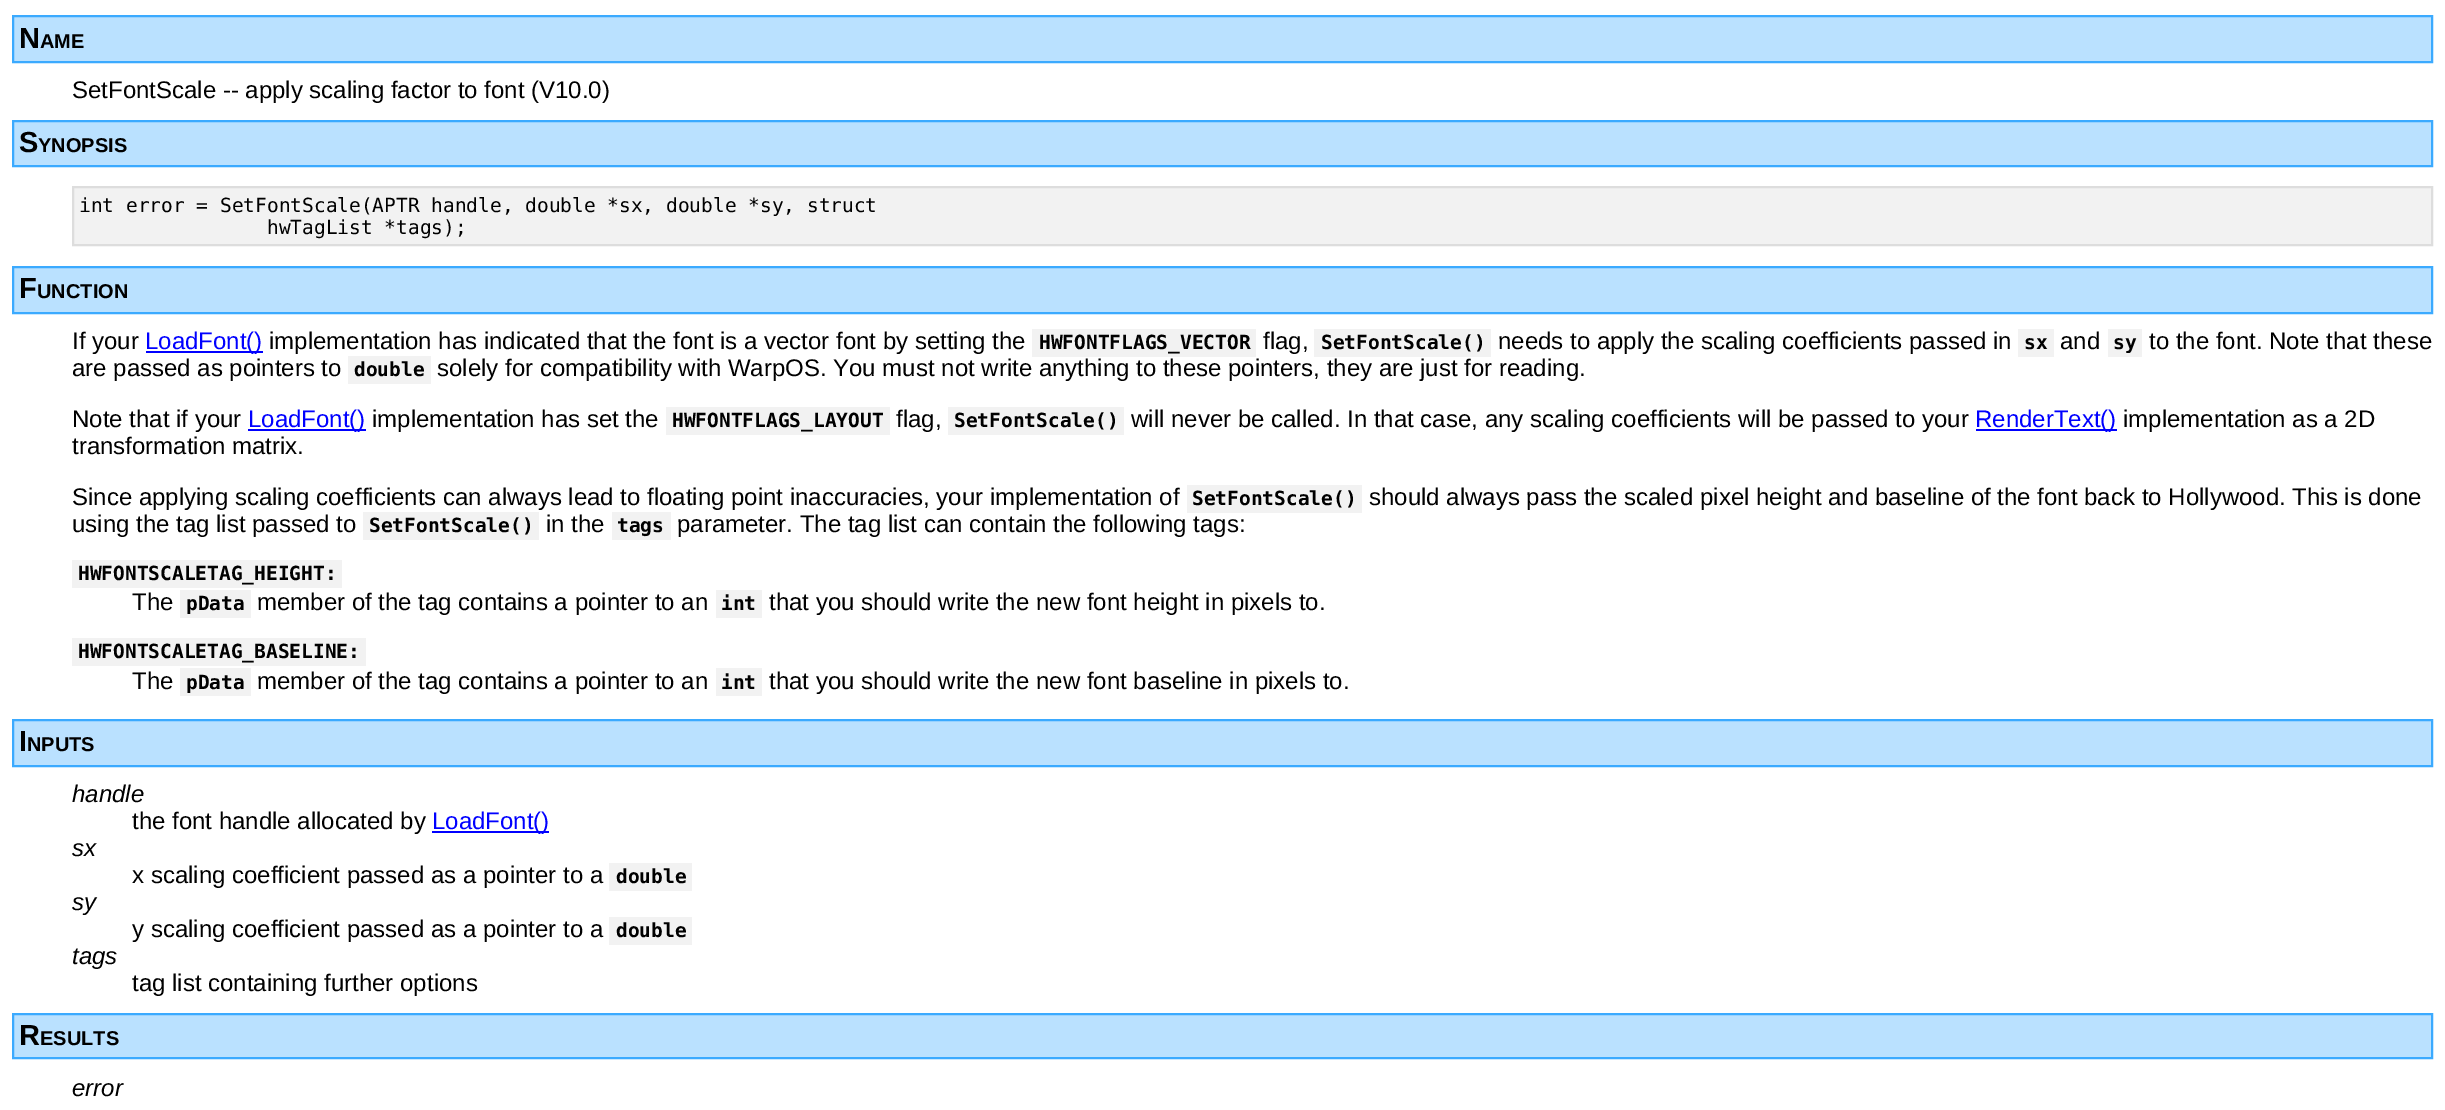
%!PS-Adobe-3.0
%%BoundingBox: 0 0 2445 1110
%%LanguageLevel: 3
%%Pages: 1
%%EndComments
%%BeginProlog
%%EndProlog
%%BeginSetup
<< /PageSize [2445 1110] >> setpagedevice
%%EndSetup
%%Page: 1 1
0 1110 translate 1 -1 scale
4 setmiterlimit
1 setgray
0 0 2445 1110 rectfill
0.729 0.882 1 setrgbcolor
newpath 13 16 moveto 2432 16 lineto 2432 62 lineto 13 62 lineto closepath gsave fill grestore
0.231 0.667 1 setrgbcolor
2 setlinewidth
stroke
0.729 0.882 1 setrgbcolor
newpath 13 121 moveto 2432 121 lineto 2432 166 lineto 13 166 lineto closepath gsave fill grestore
0.231 0.667 1 setrgbcolor
stroke
0.949 setgray
newpath 73 187 moveto 2432 187 lineto 2432 245 lineto 73 245 lineto closepath gsave fill grestore
0.867 setgray
stroke
0.729 0.882 1 setrgbcolor
newpath 13 267 moveto 2432 267 lineto 2432 313 lineto 13 313 lineto closepath gsave fill grestore
0.231 0.667 1 setrgbcolor
stroke
0 0 1 setrgbcolor
146 351 117 2 rectfill
0.949 setgray
1032 329 224 28 rectfill
1314 329 177 28 rectfill
2018 329 36 28 rectfill
2108 329 34 28 rectfill
348 356 83 28 rectfill
0 0 1 setrgbcolor
248 429 118 2 rectfill
0.949 setgray
666 407 224 28 rectfill
948 407 176 28 rectfill
0 0 1 setrgbcolor
1976 429 141 2 rectfill
0.949 setgray
1187 485 175 28 rectfill
363 512 176 28 rectfill
612 512 59 28 rectfill
72 560 270 28 rectfill
180 590 71 28 rectfill
716 590 46 28 rectfill
72 638 294 28 rectfill
180 668 71 28 rectfill
716 668 46 28 rectfill
0.729 0.882 1 setrgbcolor
newpath 13 720 moveto 2432 720 lineto 2432 766 lineto 13 766 lineto closepath gsave fill grestore
0.231 0.667 1 setrgbcolor
stroke
0 0 1 setrgbcolor
432 831 117 2 rectfill
0.949 setgray
609 863 83 28 rectfill
609 917 83 28 rectfill
0.729 0.882 1 setrgbcolor
newpath 13 1014 moveto 2432 1014 lineto 2432 1058 lineto 13 1058 lineto closepath gsave fill grestore
0.231 0.667 1 setrgbcolor
stroke
/LiberationSans-Bold [29 0 0 -29 0 0] selectfont
0 setgray
19 48 moveto (N) show
/LiberationSans-Bold [20 0 0 -20 0 0] selectfont
40 48 moveto (AME) show
/LiberationSans-Regular [24 0 0 -24 0 0] selectfont
72 98 moveto (SetFontScale -- apply scaling factor to font \(V10.0\)) show
/LiberationSans-Bold [29 0 0 -29 0 0] selectfont
19 152 moveto (S) show
/LiberationSans-Bold [20 0 0 -20 0 0] selectfont
38 152 moveto (YNOPSIS) show
/DejaVuSansMono-Regular [19.5 0 0 -19.5 0 0] selectfont
79 212 moveto (int error = SetFontScale\(APTR handle, double *sx, double *sy, struct) show
267 234 moveto (hwTagList *tags\);) show
/LiberationSans-Bold [29 0 0 -29 0 0] selectfont
19 298 moveto (F) show
/LiberationSans-Bold [20 0 0 -20 0 0] selectfont
37 298 moveto (UNCTION) show
/LiberationSans-Regular [24 0 0 -24 0 0] selectfont
72 349 moveto (If your) show
0 0 1 setrgbcolor
145 349 moveto (LoadFont\(\)) show
0 setgray
269 349 moveto (implementation has indicated that the font is a vector font by setting the) show
/DejaVuSansMono-Bold [19.5 0 0 -19.5 0 0] selectfont
1039 349 moveto (HWFONTFLAGS_VECTOR) show
/LiberationSans-Regular [24 0 0 -24 0 0] selectfont
1263 349 moveto (flag,) show
/DejaVuSansMono-Bold [19.5 0 0 -19.5 0 0] selectfont
1321 349 moveto (SetFontScale\(\)) show
/LiberationSans-Regular [24 0 0 -24 0 0] selectfont
1498 349 moveto (needs to apply the scaling coefficients passed in) show
/DejaVuSansMono-Bold [19.5 0 0 -19.5 0 0] selectfont
2024 349 moveto (sx) show
/LiberationSans-Regular [24 0 0 -24 0 0] selectfont
2060 349 moveto (and) show
/DejaVuSansMono-Bold [19.5 0 0 -19.5 0 0] selectfont
2113 349 moveto (sy) show
/LiberationSans-Regular [24 0 0 -24 0 0] selectfont
2149 349 moveto (to the font. Note that these) show
72 376 moveto (are passed as pointers to) show
/DejaVuSansMono-Bold [19.5 0 0 -19.5 0 0] selectfont
354 376 moveto (double) show
/LiberationSans-Regular [24 0 0 -24 0 0] selectfont
437 376 moveto (solely for compatibility with WarpOS. You must not write anything to these pointers, they are just for reading.) show
72 427 moveto (Note that if your) show
0 0 1 setrgbcolor
248 427 moveto (LoadFont\(\)) show
0 setgray
372 427 moveto (implementation has set the) show
/DejaVuSansMono-Bold [19.5 0 0 -19.5 0 0] selectfont
672 427 moveto (HWFONTFLAGS_LAYOUT) show
/LiberationSans-Regular [24 0 0 -24 0 0] selectfont
896 427 moveto (flag,) show
/DejaVuSansMono-Bold [19.5 0 0 -19.5 0 0] selectfont
954 427 moveto (SetFontScale\(\)) show
/LiberationSans-Regular [24 0 0 -24 0 0] selectfont
1131 427 moveto (will never be called. In that case, any scaling coefficients will be passed to your) show
0 0 1 setrgbcolor
1975 427 moveto (RenderText\(\)) show
0 setgray
2123 427 moveto (implementation as a 2D) show
72 454 moveto (transformation matrix.) show
72 505 moveto (Since applying scaling coefficients can always lead to floating point inaccuracies, your implementation of) show
/DejaVuSansMono-Bold [19.5 0 0 -19.5 0 0] selectfont
1192 505 moveto (SetFontScale\(\)) show
/LiberationSans-Regular [24 0 0 -24 0 0] selectfont
1369 505 moveto (should always pass the scaled pixel height and baseline of the font back to Hollywood. This is done) show
72 532 moveto (using the tag list passed to) show
/DejaVuSansMono-Bold [19.5 0 0 -19.5 0 0] selectfont
369 532 moveto (SetFontScale\(\)) show
/LiberationSans-Regular [24 0 0 -24 0 0] selectfont
546 532 moveto (in the) show
/DejaVuSansMono-Bold [19.5 0 0 -19.5 0 0] selectfont
617 532 moveto (tags) show
/LiberationSans-Regular [24 0 0 -24 0 0] selectfont
677 532 moveto (parameter. The tag list can contain the following tags:) show
/DejaVuSansMono-Bold [19.5 0 0 -19.5 0 0] selectfont
78 580 moveto (HWFONTSCALETAG_HEIGHT:) show
/LiberationSans-Regular [24 0 0 -24 0 0] selectfont
132 610 moveto (The) show
/DejaVuSansMono-Bold [19.5 0 0 -19.5 0 0] selectfont
186 610 moveto (pData) show
/LiberationSans-Regular [24 0 0 -24 0 0] selectfont
257 610 moveto (member of the tag contains a pointer to an) show
/DejaVuSansMono-Bold [19.5 0 0 -19.5 0 0] selectfont
721 610 moveto (int) show
/LiberationSans-Regular [24 0 0 -24 0 0] selectfont
769 610 moveto (that you should write the new font height in pixels to.) show
/DejaVuSansMono-Bold [19.5 0 0 -19.5 0 0] selectfont
78 658 moveto (HWFONTSCALETAG_BASELINE:) show
/LiberationSans-Regular [24 0 0 -24 0 0] selectfont
132 689 moveto (The) show
/DejaVuSansMono-Bold [19.5 0 0 -19.5 0 0] selectfont
186 689 moveto (pData) show
/LiberationSans-Regular [24 0 0 -24 0 0] selectfont
257 689 moveto (member of the tag contains a pointer to an) show
/DejaVuSansMono-Bold [19.5 0 0 -19.5 0 0] selectfont
721 689 moveto (int) show
/LiberationSans-Regular [24 0 0 -24 0 0] selectfont
769 689 moveto (that you should write the new font baseline in pixels to.) show
/LiberationSans-Bold [29 0 0 -29 0 0] selectfont
19 751 moveto (I) show
/LiberationSans-Bold [20 0 0 -20 0 0] selectfont
27 751 moveto (NPUTS) show
/LiberationSans-Italic [24 0 0 -24 0 0] selectfont
72 802 moveto (handle) show
/LiberationSans-Regular [24 0 0 -24 0 0] selectfont
132 829 moveto (the font handle allocated by) show
0 0 1 setrgbcolor
432 829 moveto (LoadFont\(\)) show
/LiberationSans-Italic [24 0 0 -24 0 0] selectfont
0 setgray
72 856 moveto (sx) show
/LiberationSans-Regular [24 0 0 -24 0 0] selectfont
132 883 moveto (x scaling coefficient passed as a pointer to a) show
/DejaVuSansMono-Bold [19.5 0 0 -19.5 0 0] selectfont
616 883 moveto (double) show
/LiberationSans-Italic [24 0 0 -24 0 0] selectfont
72 910 moveto (sy) show
/LiberationSans-Regular [24 0 0 -24 0 0] selectfont
132 937 moveto (y scaling coefficient passed as a pointer to a) show
/DejaVuSansMono-Bold [19.5 0 0 -19.5 0 0] selectfont
616 937 moveto (double) show
/LiberationSans-Italic [24 0 0 -24 0 0] selectfont
72 964 moveto (tags) show
/LiberationSans-Regular [24 0 0 -24 0 0] selectfont
132 991 moveto (tag list containing further options) show
/LiberationSans-Bold [29 0 0 -29 0 0] selectfont
19 1045 moveto (R) show
/LiberationSans-Bold [20 0 0 -20 0 0] selectfont
40 1045 moveto (ESULTS) show
/LiberationSans-Italic [24 0 0 -24 0 0] selectfont
72 1096 moveto (error) show
showpage
%%EOF
